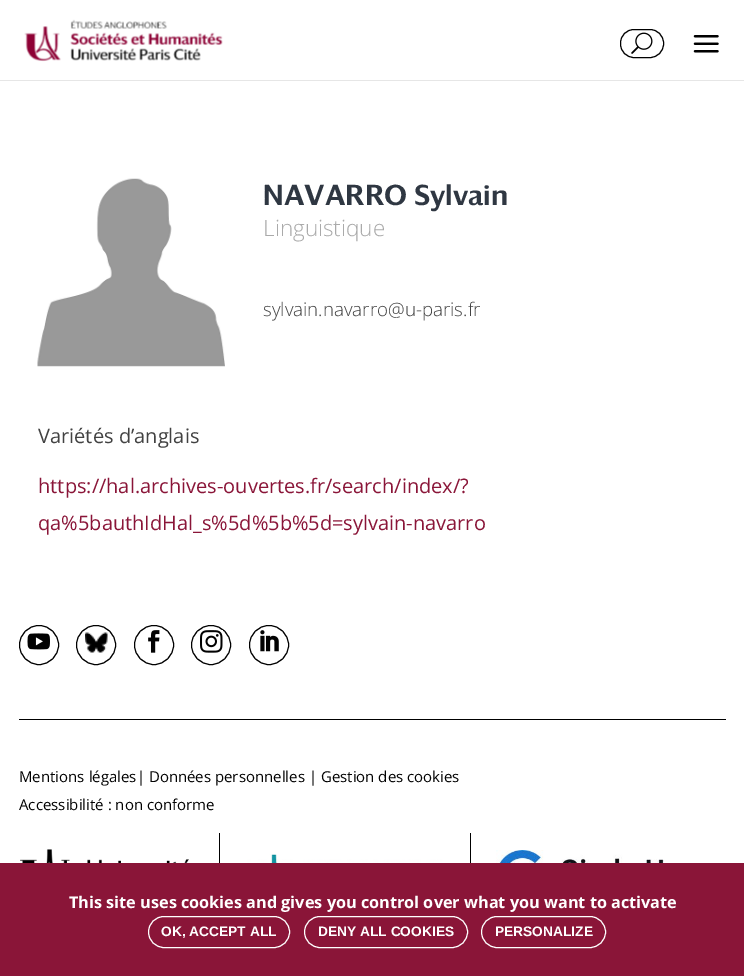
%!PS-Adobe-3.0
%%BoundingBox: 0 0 744 976
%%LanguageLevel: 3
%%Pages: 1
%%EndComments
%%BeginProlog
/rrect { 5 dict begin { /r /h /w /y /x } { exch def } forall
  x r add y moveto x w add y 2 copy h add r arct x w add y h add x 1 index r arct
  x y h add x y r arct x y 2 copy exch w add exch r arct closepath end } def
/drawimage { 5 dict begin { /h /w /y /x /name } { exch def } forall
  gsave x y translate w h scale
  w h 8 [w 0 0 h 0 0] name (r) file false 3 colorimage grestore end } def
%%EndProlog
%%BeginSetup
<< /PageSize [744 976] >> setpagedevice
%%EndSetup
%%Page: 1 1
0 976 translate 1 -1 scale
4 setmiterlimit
1 setgray
0 0 744 976 rectfill
0.902 setgray
0 80 744 1 rectfill
(images/1.raw) 24 19 199 43 drawimage
0 setgray
620.5 29.5 43 28 13.5 rrect stroke
(images/2.raw) 631 32 22 22 drawimage
(images/3.raw) 693 35 26 18 drawimage
(images/4.raw) 37 178 188 189 drawimage
19 719 707 1 rectfill
newpath 39 645 19.5 0 360 arc closepath stroke
(images/5.raw) 27 633 23 17 drawimage
newpath 96 645 19.5 0 360 arc closepath stroke
(images/6.raw) 85 632 23 21 drawimage
newpath 154 645 19.5 0 360 arc closepath stroke
(images/7.raw) 148 630 12 23 drawimage
newpath 211 645 19.5 0 360 arc closepath stroke
(images/8.raw) 200 630 23 23 drawimage
newpath 269 645 19.5 0 360 arc closepath stroke
(images/9.raw) 260 630 19 22 drawimage
219 833 1 30 rectfill
(images/10.raw) 20 849 169 14 drawimage
470 833 1 30 rectfill
(images/11.raw) 247 854 196 9 drawimage
(images/12.raw) 496 850 176 13 drawimage
0.541 0.082 0.22 setrgbcolor
0 863 744 113 rectfill
1 setgray
148.5 916.5 141 31 15.5 rrect stroke
304.5 916.5 163 31 15.5 rrect stroke
481.5 916.5 124 31 15.5 rrect stroke
/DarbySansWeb-Medium [28.1 0 0 -28.1 0 0] selectfont
0.184 0.216 0.259 setrgbcolor
263 205 moveto (NAVARRO Sylvain) show
/OpenSans-Light [22.5 0 0 -22.5 0 0] selectfont
0.667 setgray
263 236 moveto (Linguistique) show
/OpenSans-Light [18.75 0 0 -18.75 0 0] selectfont
0.259 setgray
263 316 moveto (sylvain.navarro@u-paris.fr) show
/OpenSans-Regular [20 0 0 -20 0 0] selectfont
38 443 moveto (Variétés d’anglais) show
0.541 0.082 0.22 setrgbcolor
38 493 moveto (https://hal.archives-ouvertes.fr/search/index/?) show
38 530 moveto (qa%5bauthIdHal_s%5d%5b%5d=sylvain-navarro) show
/OpenSans-Regular [15 0 0 -15 0 0] selectfont
0.008 setgray
19 782 moveto (Mentions légales| Données personnelles | Gestion des cookies) show
19 810 moveto (Accessibilité : non conforme) show
/OpenSans-Bold [16.25 0 0 -16.25 0 0] selectfont
1 setgray
69 908 moveto (This site uses cookies and gives you control over what you want to activate) show
/LiberationSans-Bold [13.75 0 0 -13.75 0 0] selectfont
161 936 moveto (OK, ACCEPT ALL) show
318 936 moveto (DENY ALL COOKIES) show
495 936 moveto (PERSONALIZE) show
showpage
%%EOF
